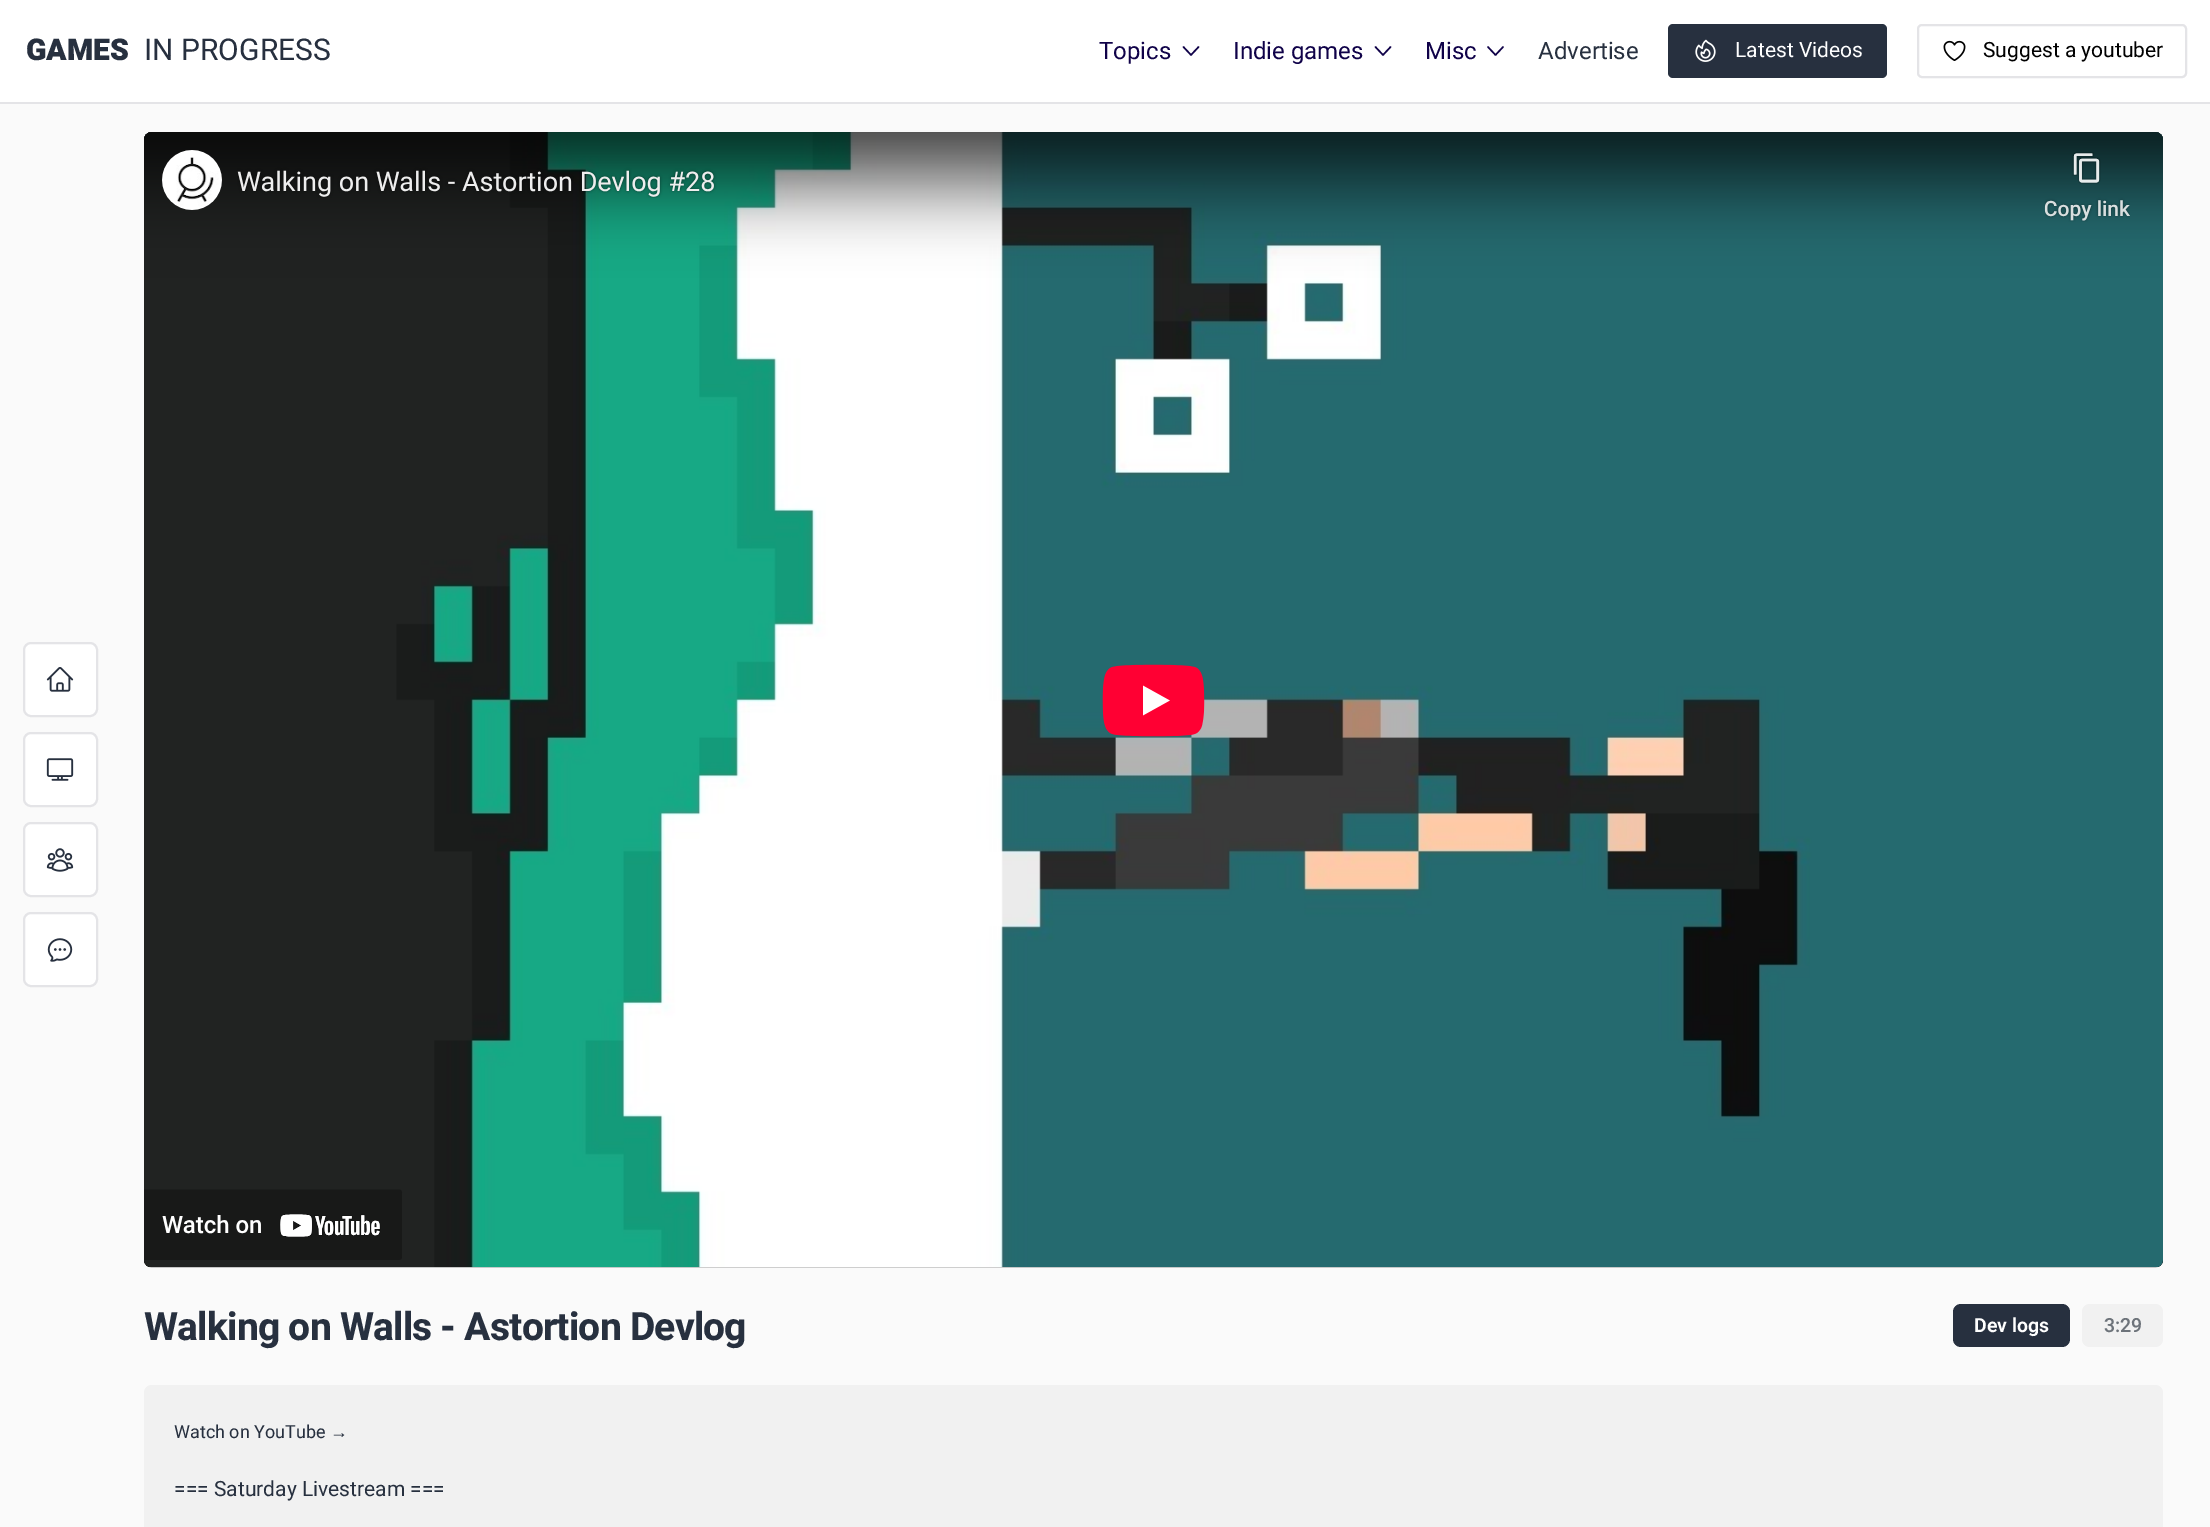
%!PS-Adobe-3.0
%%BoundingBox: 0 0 2210 1527
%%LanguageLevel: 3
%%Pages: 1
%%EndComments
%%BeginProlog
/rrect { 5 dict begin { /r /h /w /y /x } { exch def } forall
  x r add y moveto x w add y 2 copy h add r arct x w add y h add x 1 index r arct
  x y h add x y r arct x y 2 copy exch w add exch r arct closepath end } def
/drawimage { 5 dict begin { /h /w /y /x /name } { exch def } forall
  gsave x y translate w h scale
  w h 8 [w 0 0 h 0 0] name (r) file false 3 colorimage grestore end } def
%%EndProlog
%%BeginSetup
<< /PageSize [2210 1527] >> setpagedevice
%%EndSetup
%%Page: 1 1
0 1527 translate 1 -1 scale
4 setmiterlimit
0.98 setgray
0 0 2210 1527 rectfill
1 setgray
0 0 2210 102 rectfill
0.894 0.894 0.906 setrgbcolor
0 102 2210 2 rectfill
0.063 0.008 0.286 setrgbcolor
1.5 setlinewidth
1 setlinecap
1 setlinejoin
newpath 1198.5 47 moveto 1191 55 lineto 1183.5 47 lineto stroke
newpath 1390.5 47 moveto 1383 55 lineto 1375.5 47 lineto stroke
newpath 1503 47 moveto 1495.5 55 lineto 1488 47 lineto stroke
0.153 0.188 0.247 setrgbcolor
1668 24 219 54 5 rrect fill
(images/1.raw) 1695 39 21 23 drawimage
0.894 0.894 0.906 setrgbcolor
2 setlinewidth
0 setlinecap
0 setlinejoin
1918 25 268 52 4 rrect stroke
(images/2.raw) 1943 40 23 21 drawimage
1 setgray
24 643 73 73 7 rrect gsave fill grestore
0.894 0.894 0.906 setrgbcolor
stroke
(images/3.raw) 46 667 28 25 drawimage
1 setgray
24 733 73 73 7 rrect gsave fill grestore
0.894 0.894 0.906 setrgbcolor
stroke
(images/4.raw) 46 758 28 23 drawimage
1 setgray
24 823 73 73 7 rrect gsave fill grestore
0.894 0.894 0.906 setrgbcolor
stroke
(images/5.raw) 46 848 28 24 drawimage
1 setgray
24 913 73 73 7 rrect gsave fill grestore
0.894 0.894 0.906 setrgbcolor
stroke
(images/6.raw) 47 938 26 24 drawimage
(images/7.raw) 144 132 2019 1136 drawimage
0.153 0.188 0.247 setrgbcolor
1953 1304 117 43 8 rrect fill
0.945 setgray
2082 1304 81 43 8 rrect fill
144 1385 2019 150 8 rrect fill
/Heebo-Black [30 0 0 -30 0 0] selectfont
0.153 0.188 0.247 setrgbcolor
26 60 moveto (GAMES) show
/Heebo-Regular [30 0 0 -30 0 0] selectfont
144 60 moveto (IN PROGRESS) show
/Heebo-Regular [24 0 0 -24 0 0] selectfont
0.063 0.008 0.286 setrgbcolor
1099 59 moveto (Topics) show
1233 59 moveto (Indie games) show
1425 59 moveto (Misc) show
0.153 0.188 0.247 setrgbcolor
1538 59 moveto (Advertise) show
/Heebo-Regular [21 0 0 -21 0 0] selectfont
1 setgray
1735 57 moveto (Latest Videos) show
0 setgray
1983 57 moveto (Suggest a youtuber) show
/Heebo-Bold [39 0 0 -39 0 0] selectfont
0.153 0.188 0.247 setrgbcolor
144 1340 moveto -0.8 0 (Walking on Walls - Astortion Devlog) ashow
/Heebo-SemiBold [19.5 0 0 -19.5 0 0] selectfont
1 setgray
1974 1332 moveto (Dev logs) show
/Heebo-Medium [19.5 0 0 -19.5 0 0] selectfont
0.427 0.451 0.478 setrgbcolor
2104 1332 moveto (3:29) show
/Heebo-Regular [18 0 0 -18 0 0] selectfont
0.153 0.188 0.247 setrgbcolor
174 1438 moveto (Watch on YouTube) show
/LiberationSans-Regular [18 0 0 -18 0 0] selectfont
330 1438 moveto (→) show
/Heebo-Regular [21 0 0 -21 0 0] selectfont
174 1496 moveto (=== Saturday Livestream ===) show
showpage
%%EOF
